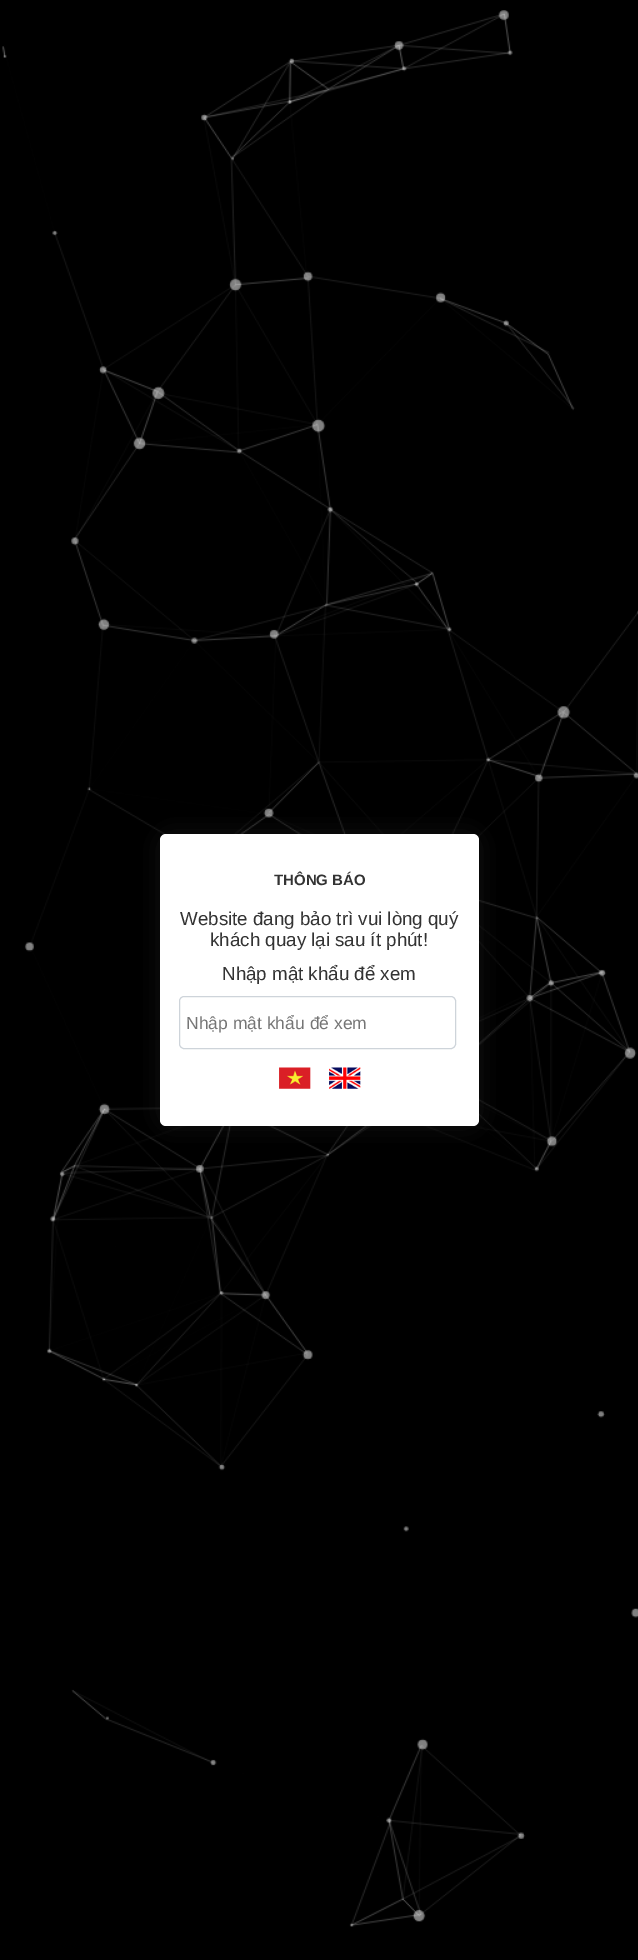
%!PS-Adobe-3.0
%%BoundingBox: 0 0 638 1960
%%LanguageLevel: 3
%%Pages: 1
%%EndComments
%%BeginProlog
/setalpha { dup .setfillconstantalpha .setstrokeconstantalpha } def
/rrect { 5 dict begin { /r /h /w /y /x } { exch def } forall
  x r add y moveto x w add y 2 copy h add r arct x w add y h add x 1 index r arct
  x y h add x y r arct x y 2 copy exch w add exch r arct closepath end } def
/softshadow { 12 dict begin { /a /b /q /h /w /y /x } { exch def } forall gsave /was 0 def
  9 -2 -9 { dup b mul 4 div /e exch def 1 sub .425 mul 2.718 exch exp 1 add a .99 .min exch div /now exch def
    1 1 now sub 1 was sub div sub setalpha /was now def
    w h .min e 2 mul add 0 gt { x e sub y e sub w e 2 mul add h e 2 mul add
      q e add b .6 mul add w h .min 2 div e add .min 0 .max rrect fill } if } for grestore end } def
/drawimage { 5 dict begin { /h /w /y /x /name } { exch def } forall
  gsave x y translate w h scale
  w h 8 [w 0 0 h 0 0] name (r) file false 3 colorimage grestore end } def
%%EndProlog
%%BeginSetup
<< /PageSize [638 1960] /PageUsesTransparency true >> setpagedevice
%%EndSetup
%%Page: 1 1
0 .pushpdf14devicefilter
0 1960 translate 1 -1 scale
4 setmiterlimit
0 setgray
0 0 638 1960 rectfill
(images/1.raw) 2 10 636 1917 drawimage
0.2 setgray
171 845 297 270 0 12.5 1 softshadow
1 setgray
160 834 319 292 6 rrect fill
0.808 0.831 0.855 setrgbcolor
179.5 996.5 276 52 4.5 rrect stroke
(images/2.raw) 279 1067 32 22 drawimage
(images/3.raw) 329 1067 32 22 drawimage
/LiberationSans-Bold [15 0 0 -15 0 0] selectfont
0.2 setgray
274 885 moveto (THÔNG BÁO) show
/LiberationSans-Regular [18.75 0 0 -18.75 0 0] selectfont
180 925 moveto (Website đang bảo trì vui lòng quý) show
210 946 moveto (khách quay lại sau ít phút!) show
222 980 moveto (Nhập mật khẩu để xem) show
/LiberationSans-Regular [17.5 0 0 -17.5 0 0] selectfont
0.459 setgray
186 1029 moveto (Nhập mật khẩu để xem) show
.poppdf14devicefilter showpage
%%EOF
